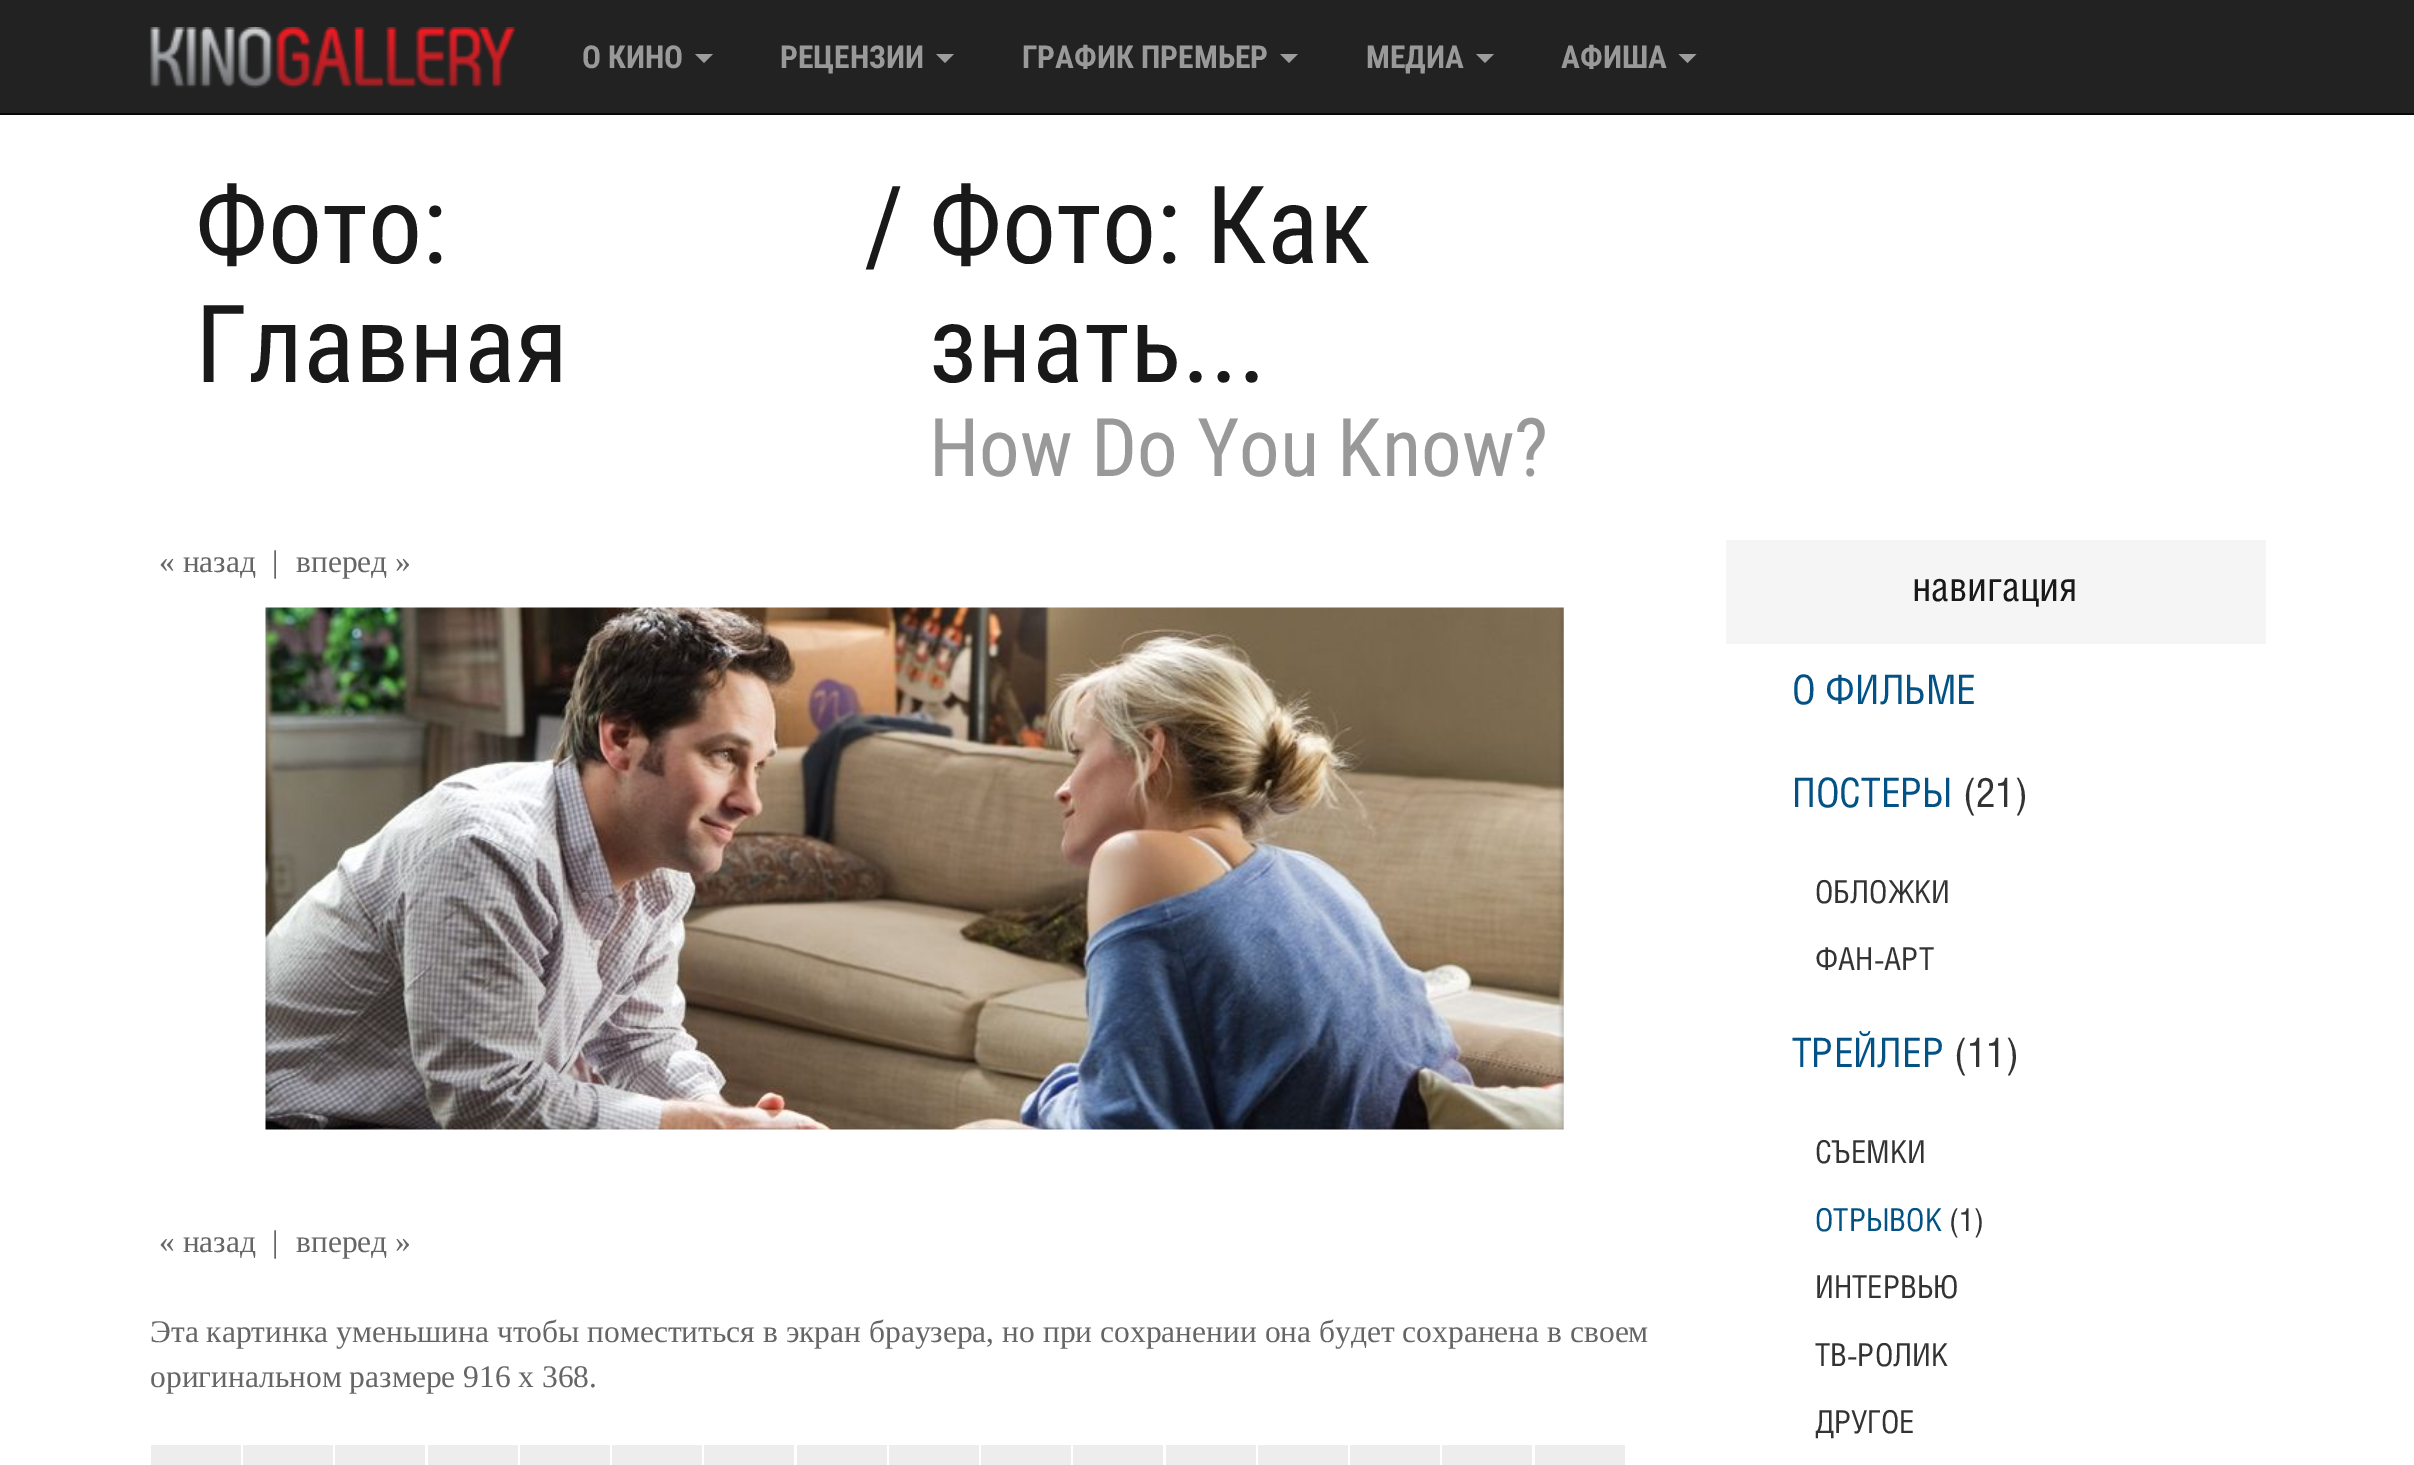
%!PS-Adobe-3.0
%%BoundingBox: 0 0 2414 1465
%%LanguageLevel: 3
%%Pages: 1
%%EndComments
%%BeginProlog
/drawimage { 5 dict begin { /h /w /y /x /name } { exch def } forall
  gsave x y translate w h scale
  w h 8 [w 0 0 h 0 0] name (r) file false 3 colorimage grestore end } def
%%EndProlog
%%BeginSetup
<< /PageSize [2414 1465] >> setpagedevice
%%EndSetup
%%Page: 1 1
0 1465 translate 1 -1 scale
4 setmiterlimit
1 setgray
0 0 2414 1465 rectfill
0.133 setgray
0 0 2414 113 rectfill
0.031 setgray
0 113 2414 2 rectfill
(images/1.raw) 150 27 366 61 drawimage
0.616 setgray
newpath 695 54 moveto 713 54 lineto 704 63 lineto closepath fill
newpath 936 54 moveto 954 54 lineto 945 63 lineto closepath fill
newpath 1280 54 moveto 1298 54 lineto 1289 63 lineto closepath fill
newpath 1476 54 moveto 1494 54 lineto 1485 63 lineto closepath fill
newpath 1678.5 54 moveto 1696.5 54 lineto 1687.5 63 lineto closepath fill
(images/2.raw) 265 607 1299 523 drawimage
0.929 setgray
151 1445 90 20 rectfill
243 1445 90 20 rectfill
335 1445 90 20 rectfill
428 1445 90 20 rectfill
520 1445 90 20 rectfill
612 1445 90 20 rectfill
704 1445 90 20 rectfill
797 1445 90 20 rectfill
889 1445 90 20 rectfill
981 1445 90 20 rectfill
1073 1445 90 20 rectfill
1166 1445 90 20 rectfill
1258 1445 90 20 rectfill
1350 1445 90 20 rectfill
1442 1445 90 20 rectfill
1535 1445 90 20 rectfill
0.961 setgray
1726 540 540 104 rectfill
/RobotoCondensed-Bold [31.5 0 0 -31.5 0 0] selectfont
0.6 setgray
582 68 moveto (О КИНО) show
780 68 moveto (РЕЦЕНЗИИ) show
1022 68 moveto (ГРАФИК ПРЕМЬЕР) show
1366 68 moveto (МЕДИА) show
1561 68 moveto (АФИША) show
/RobotoCondensed-Regular [108 0 0 -108 0 0] selectfont
0.098 setgray
195 263 moveto (Фото:) show
195 382 moveto (Главная) show
864 263 moveto (/ Фото: Как) show
929 382 moveto (знать...) show
/RobotoCondensed-Regular [81 0 0 -81 0 0] selectfont
0.6 setgray
929 476 moveto (How Do You Know?) show
/LiberationSerif-Regular [31.5 0 0 -31.5 0 0] selectfont
0.4 setgray
159 572 moveto (« назад) show
272 572 moveto (|) show
296 572 moveto (вперед ») show
159 1252 moveto (« назад) show
272 1252 moveto (|) show
296 1252 moveto (вперед ») show
150 1342 moveto (Эта картинка уменьшина чтобы поместиться в экран браузера, но при сохранении она будет сохранена в своем) show
150 1387 moveto (оригинальном размере 916 x 368.) show
/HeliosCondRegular-Regular [40.5 0 0 -40.5 0 0] selectfont
0.098 setgray
1912 601 moveto (навигация) show
0.008 0.322 0.522 setrgbcolor
1792 704 moveto (О ФИЛЬМЕ) show
1792 807 moveto (ПОСТЕРЫ) show
0.2 setgray
1963 807 moveto (\(21\)) show
/HeliosCondRegular-Regular [31.5 0 0 -31.5 0 0] selectfont
1815 903 moveto (ОБЛОЖКИ) show
1815 970 moveto (ФАН-АРТ) show
/HeliosCondRegular-Regular [40.5 0 0 -40.5 0 0] selectfont
0.008 0.322 0.522 setrgbcolor
1792 1067 moveto (ТРЕЙЛЕР) show
0.2 setgray
1954 1067 moveto (\(11\)) show
/HeliosCondRegular-Regular [31.5 0 0 -31.5 0 0] selectfont
1815 1163 moveto (СЪЕМКИ) show
0.008 0.322 0.522 setrgbcolor
1815 1231 moveto (ОТРЫВОК) show
0.2 setgray
1949 1231 moveto (\(1\)) show
1815 1298 moveto (ИНТЕРВЬЮ) show
1815 1366 moveto (ТВ-РОЛИК) show
1815 1433 moveto (ДРУГОЕ) show
showpage
%%EOF
